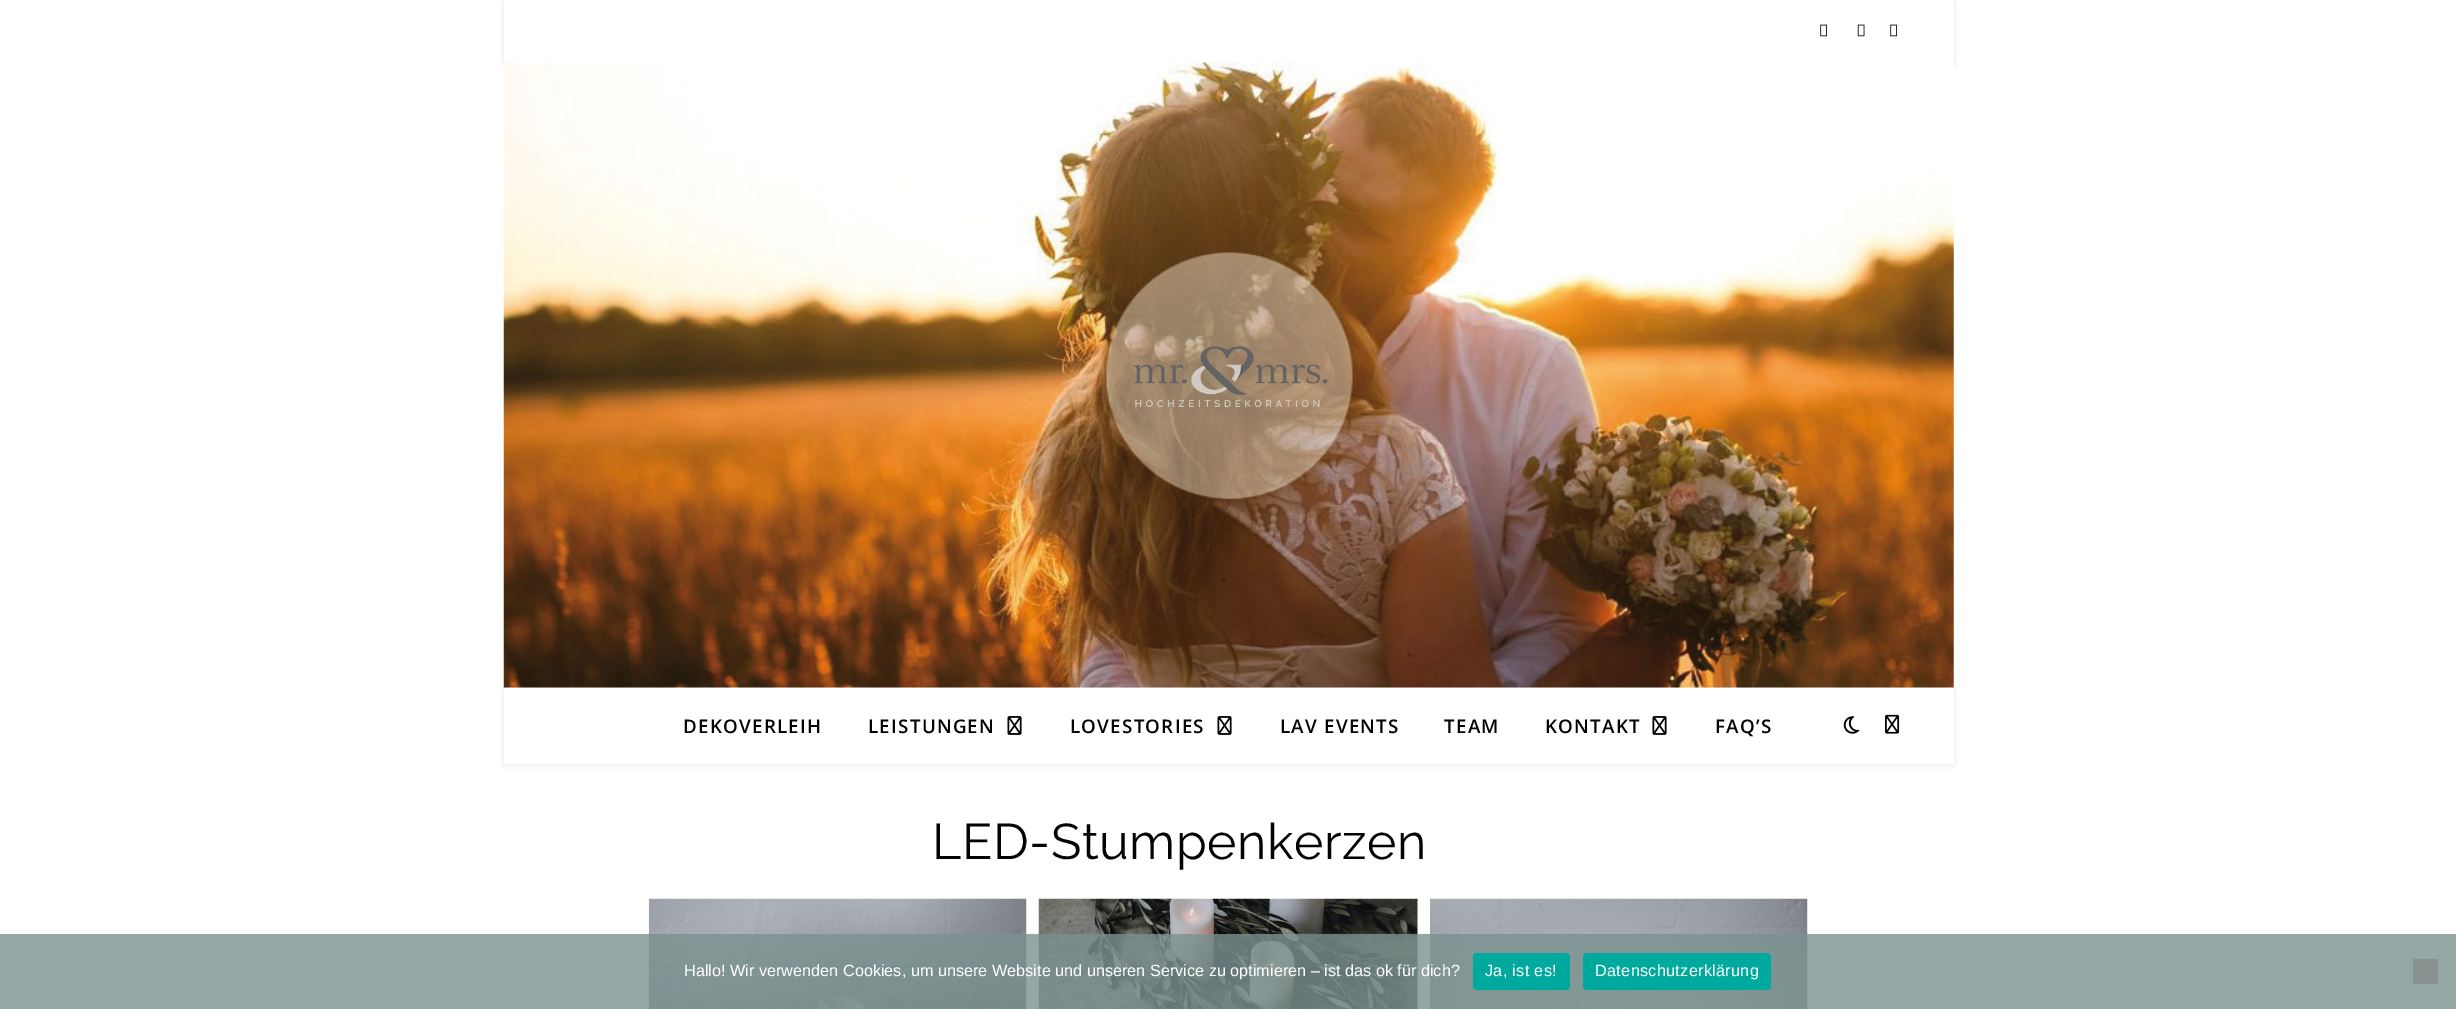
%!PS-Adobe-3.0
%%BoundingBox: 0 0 2456 1009
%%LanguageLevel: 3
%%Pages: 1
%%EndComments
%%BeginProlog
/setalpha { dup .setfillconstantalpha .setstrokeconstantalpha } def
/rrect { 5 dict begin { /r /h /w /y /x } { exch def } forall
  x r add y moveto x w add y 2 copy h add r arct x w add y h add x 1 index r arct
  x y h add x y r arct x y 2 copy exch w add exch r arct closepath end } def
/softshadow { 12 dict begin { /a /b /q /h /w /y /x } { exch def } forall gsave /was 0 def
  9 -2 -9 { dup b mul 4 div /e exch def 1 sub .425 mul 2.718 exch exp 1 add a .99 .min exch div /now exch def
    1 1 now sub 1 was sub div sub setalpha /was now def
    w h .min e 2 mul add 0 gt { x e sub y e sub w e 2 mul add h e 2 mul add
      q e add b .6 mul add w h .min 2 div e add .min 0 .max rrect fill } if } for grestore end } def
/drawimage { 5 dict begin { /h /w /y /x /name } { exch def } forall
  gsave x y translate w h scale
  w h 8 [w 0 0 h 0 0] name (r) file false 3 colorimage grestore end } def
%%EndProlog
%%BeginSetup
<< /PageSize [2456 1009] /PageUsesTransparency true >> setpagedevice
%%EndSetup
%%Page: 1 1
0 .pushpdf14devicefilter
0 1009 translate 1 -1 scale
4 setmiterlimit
1 setgray
0 0 2456 1009 rectfill
0 setgray
504 1 1450 63 0 3 0.1 softshadow
1 setgray
504 0 1450 68 rectfill
(images/1.raw) 1820 24 7 13 drawimage
(images/2.raw) 1857 24 8 13 drawimage
(images/1.raw) 1890 24 7 13 drawimage
(images/3.raw) 503 62 1451 626 drawimage
(images/4.raw) 1134 346 194 61 drawimage
0 setgray
504 689 1450 76 0 3 0.1 softshadow
1 setgray
504 688 1450 76 rectfill
(images/5.raw) 1007 716 15 19 drawimage
(images/5.raw) 1217 716 15 19 drawimage
(images/5.raw) 1652 716 15 19 drawimage
(images/6.raw) 1843 716 17 18 drawimage
(images/7.raw) 1885 714 15 20 drawimage
(images/8.raw) 648 898 379 111 drawimage
(images/9.raw) 1038 898 380 111 drawimage
(images/10.raw) 1430 898 378 111 drawimage
0.8 setalpha
0.478 0.569 0.561 setrgbcolor
0 934 2456 75 rectfill
1 setalpha
0 0.663 0.616 setrgbcolor
1473 953 97 37 4 rrect fill
1583 953 188 37 4 rrect fill
0.529 0.569 0.565 setrgbcolor
2413 959 25 25 rectfill
0.541 0.58 0.576 setrgbcolor
newpath 2432 964.5 moveto 2434 966.5 lineto 2420.5 979.5 lineto 2418.5 978 lineto closepath fill
newpath 2418.5 966.5 moveto 2420.5 964.5 lineto 2434 978 lineto 2432 979.5 lineto closepath fill
/OpenSans-SemiBold [18.75 0 0 -18.75 0 0] selectfont
0.012 setgray
683 733 moveto 1.25 0 (DEKOVERLEIH) ashow
868 733 moveto 1.25 0 (LEISTUNGEN) ashow
1070 733 moveto 1.25 0 (LOVESTORIES) ashow
1280 733 moveto 1.25 0 (LAV EVENTS) ashow
1444 733 moveto 1.25 0 (TEAM) ashow
1545 733 moveto 1.25 0 (KONTAKT) ashow
1715 733 moveto 1.25 0 (FAQ’S) ashow
/Raleway-Regular [50 0 0 -50 0 0] selectfont
932 859 moveto 0.6 0 (LED-Stumpenkerzen) ashow
/LiberationSans-Regular [16.25 0 0 -16.25 0 0] selectfont
1 setgray
684 976 moveto (Hallo! Wir verwenden Cookies, um unsere Website und unseren Service zu optimieren – ist das ok für dich?) show
1485 976 moveto 0.3 0 (Ja, ist es!) ashow
1595 976 moveto 0.3 0 (Datenschutzerklärung) ashow
.poppdf14devicefilter showpage
%%EOF
